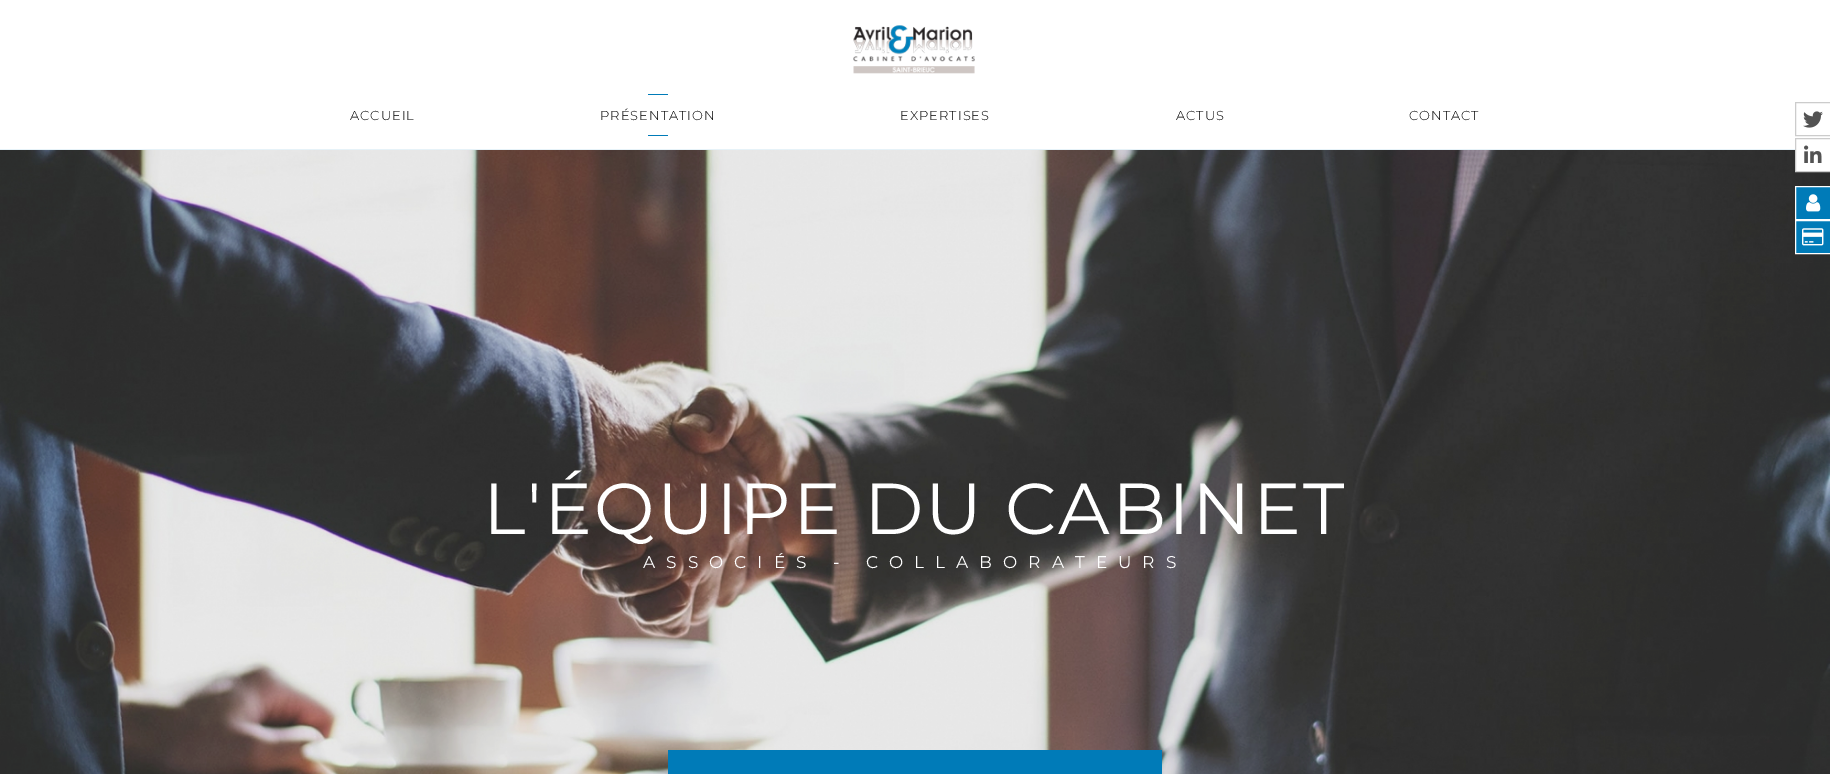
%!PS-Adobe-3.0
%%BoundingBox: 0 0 1830 774
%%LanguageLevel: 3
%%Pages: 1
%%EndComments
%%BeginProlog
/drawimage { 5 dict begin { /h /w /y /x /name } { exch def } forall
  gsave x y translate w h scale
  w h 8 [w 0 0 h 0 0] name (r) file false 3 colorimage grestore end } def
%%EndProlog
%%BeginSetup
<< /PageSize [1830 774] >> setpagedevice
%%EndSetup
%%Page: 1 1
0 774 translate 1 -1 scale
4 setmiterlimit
1 setgray
0 0 1830 774 rectfill
0.902 0.949 0.973 setrgbcolor
0 149 1795 1 rectfill
(images/1.raw) 853 25 122 49 drawimage
0 0.482 0.722 setrgbcolor
648 94 20 1 rectfill
648 135 20 1 rectfill
0.8 setgray
1795.5 102.5 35 33 rectstroke
(images/2.raw) 1803 111 20 17 drawimage
(images/6.raw) 0 150 1830 624 drawimage
1 setgray
1796 150 34 21 rectfill
0.8 setgray
1795.5 138.5 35 33 rectstroke
(images/3.raw) 1804 145 18 18 drawimage
0 0.482 0.722 setrgbcolor
newpath 1795.5 186.5 moveto 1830.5 186.5 lineto 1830.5 219.5 lineto 1795.5 219.5 lineto closepath gsave fill grestore
1 setgray
stroke
(images/4.raw) 1806 194 15 18 drawimage
0 0.482 0.722 setrgbcolor
newpath 1795.5 220.5 moveto 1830.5 220.5 lineto 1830.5 253.5 lineto 1795.5 253.5 lineto closepath gsave fill grestore
1 setgray
stroke
(images/5.raw) 1802 228 22 18 drawimage
0 0.482 0.722 setrgbcolor
668 750 494 24 rectfill
/Montserrat-Light [13 0 0 -13 0 0] selectfont
0 setgray
350 120 moveto 1 0 (ACCUEIL) ashow
600 120 moveto 1 0 (PRÉSENTATION) ashow
900 120 moveto 1 0 (EXPERTISES) ashow
1176 120 moveto 1 0 (ACTUS) ashow
1409 120 moveto 1 0 (CONTACT) ashow
/Montserrat-Regular [72 0 0 -72 0 0] selectfont
1 setgray
483 534 moveto 2 0 (L'ÉQUIPE DU CABINET) ashow
/Montserrat-Regular [17 0 0 -17 0 0] selectfont
643 568 moveto 11 0 (ASSOCIÉS - COLLABORATEURS) ashow
showpage
%%EOF
